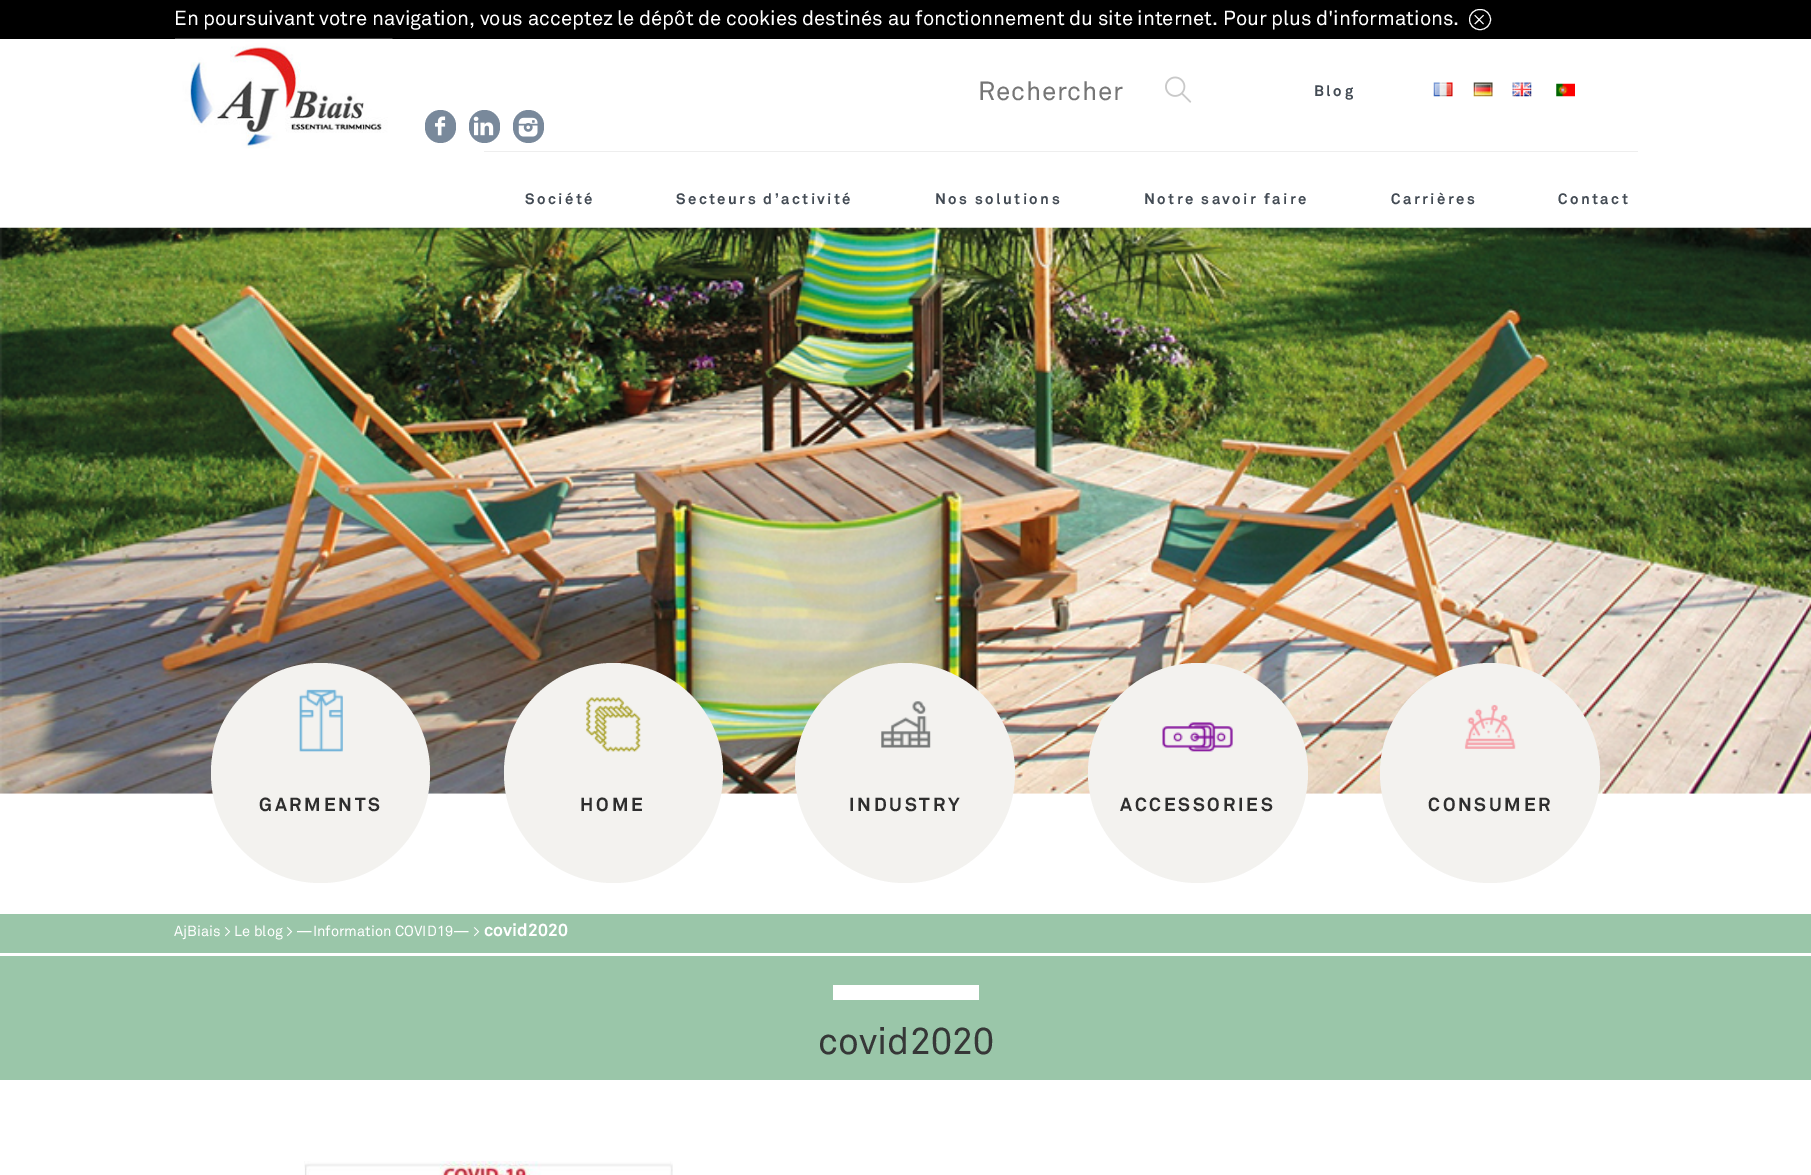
%!PS-Adobe-3.0
%%BoundingBox: 0 0 1811 1175
%%LanguageLevel: 3
%%Pages: 1
%%EndComments
%%BeginProlog
/rrect { 5 dict begin { /r /h /w /y /x } { exch def } forall
  x r add y moveto x w add y 2 copy h add r arct x w add y h add x 1 index r arct
  x y h add x y r arct x y 2 copy exch w add exch r arct closepath end } def
/drawimage { 5 dict begin { /h /w /y /x /name } { exch def } forall
  gsave x y translate w h scale
  w h 8 [w 0 0 h 0 0] name (r) file false 3 colorimage grestore end } def
%%EndProlog
%%BeginSetup
<< /PageSize [1811 1175] >> setpagedevice
%%EndSetup
%%Page: 1 1
0 1175 translate 1 -1 scale
4 setmiterlimit
1 setgray
0 0 1811 1175 rectfill
0 setgray
0 0 1811 39 rectfill
1 setgray
1469.5 9.5 21 20 10 rrect stroke
(images/1.raw) 175 38 218 111 drawimage
0.475 0.537 0.608 setrgbcolor
425 110 31 33 15.5 rrect fill
(images/2.raw) 435 116 11 20 drawimage
469 110 31 33 15.5 rrect fill
(images/3.raw) 473 116 21 20 drawimage
513 110 31 33 15.5 rrect fill
(images/4.raw) 518 117 20 20 drawimage
(images/5.raw) 1165 76 27 27 drawimage
(images/6.raw) 1433 82 20 15 drawimage
(images/7.raw) 1473 82 20 15 drawimage
(images/8.raw) 1512 82 20 15 drawimage
(images/9.raw) 1556 83 19 14 drawimage
0.933 setgray
484 151 1154 1 rectfill
(images/10.raw) 0 227 1811 567 drawimage
0.953 0.949 0.937 setrgbcolor
211 663 219 220 109.5 rrect fill
(images/11.raw) 299 689 44 63 drawimage
504 663 219 220 109.5 rrect fill
(images/12.raw) 586 697 55 55 drawimage
newpath 905 773 110 0 360 arc closepath fill
(images/13.raw) 881 701 50 47 drawimage
newpath 1198 773 110 0 360 arc closepath fill
(images/14.raw) 1162 722 71 30 drawimage
newpath 1490 773 110 0 360 arc closepath fill
(images/15.raw) 1464 704 52 45 drawimage
0.604 0.776 0.663 setrgbcolor
0 914 1811 166 rectfill
1 setgray
0 953 1811 3 rectfill
833 985 146 15 rectfill
(images/16.raw) 304 1161 369 14 drawimage
/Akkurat-Regular [20.25 0 0 -20.25 0 0] selectfont
174 25 moveto (En poursuivant votre navigation, vous acceptez le dépôt de cookies destinés au fonctionnement du site internet. Pour plus d'informations.) show
/Akkurat-Regular [18 0 0 -18 0 0] selectfont
1473 25 moveto (×) show
/Akkurat-Regular [26 0 0 -26 0 0] selectfont
0.459 setgray
978 100 moveto 0.75 0 (Rechercher) ashow
/Akkurat-Bold [15 0 0 -15 0 0] selectfont
0.263 0.294 0.329 setrgbcolor
1314 96 moveto 2.5 0 (Blog) ashow
525 204 moveto 2.4 0 (Société) ashow
676 204 moveto 2.4 0 (Secteurs d’activité) ashow
935 204 moveto 2.4 0 (Nos solutions) ashow
1144 204 moveto 2.4 0 (Notre savoir faire) ashow
1391 204 moveto 2.4 0 (Carrières) ashow
1558 204 moveto 2.4 0 (Contact) ashow
/Akkurat-Bold [18.75 0 0 -18.75 0 0] selectfont
0.18 setgray
259 811 moveto 2.75 0 (GARMENTS) ashow
580 811 moveto 2.75 0 (HOME) ashow
849 811 moveto 2.75 0 (INDUSTRY) ashow
1120 811 moveto 2.75 0 (ACCESSORIES) ashow
1428 811 moveto 2.75 0 (CONSUMER) ashow
/Akkurat-Regular [14.6 0 0 -14.6 0 0] selectfont
1 setgray
174 936 moveto (AjBiais > Le blog > —Information COVID19— >) show
/Akkurat-Bold [17.5 0 0 -17.5 0 0] selectfont
484 936 moveto (covid2020) show
/Akkurat-Regular [37.5 0 0 -37.5 0 0] selectfont
0.212 0.216 0.216 setrgbcolor
818 1054 moveto (covid2020) show
showpage
%%EOF
